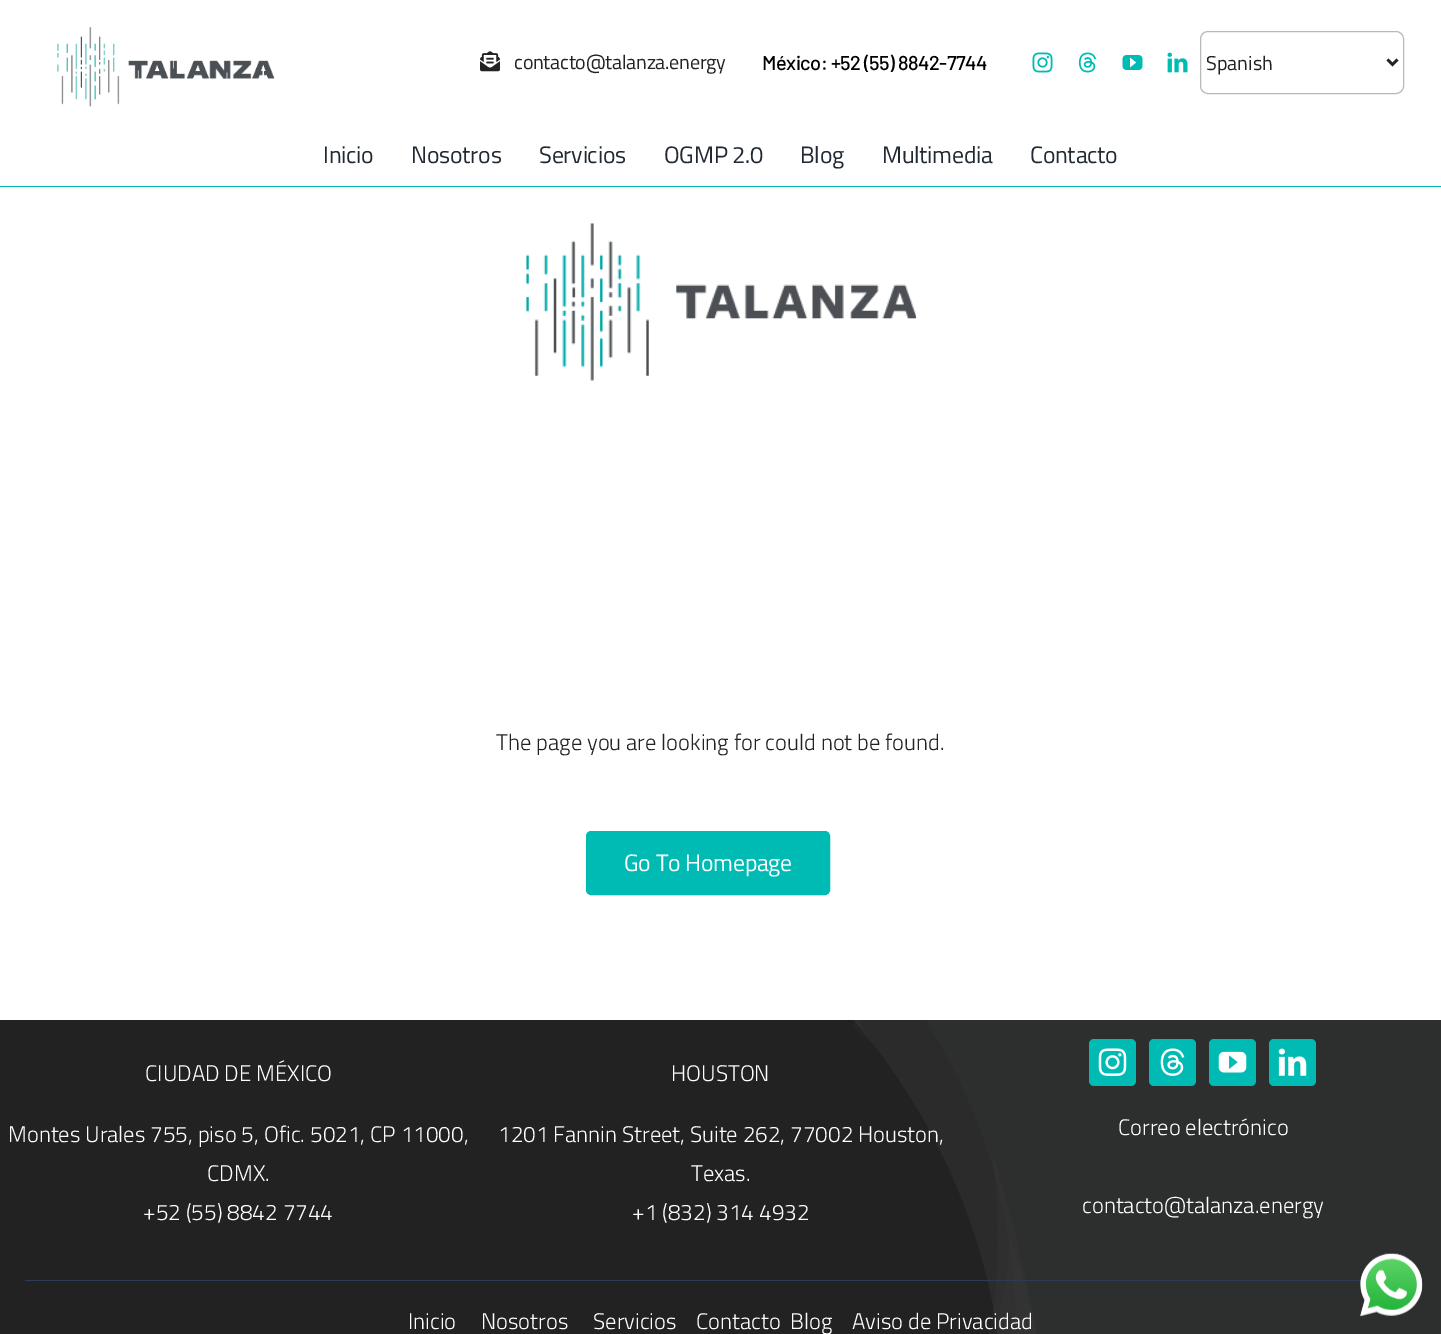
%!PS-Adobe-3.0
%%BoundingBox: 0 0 1441 1334
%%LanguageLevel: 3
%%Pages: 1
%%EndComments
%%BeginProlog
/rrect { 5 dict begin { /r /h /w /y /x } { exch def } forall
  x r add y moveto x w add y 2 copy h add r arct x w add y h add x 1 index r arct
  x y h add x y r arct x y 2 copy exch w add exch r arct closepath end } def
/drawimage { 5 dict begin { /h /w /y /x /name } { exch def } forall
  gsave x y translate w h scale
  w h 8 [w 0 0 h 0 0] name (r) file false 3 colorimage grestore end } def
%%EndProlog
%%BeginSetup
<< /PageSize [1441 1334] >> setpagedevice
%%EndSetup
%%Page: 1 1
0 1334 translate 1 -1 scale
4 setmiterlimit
1 setgray
0 0 1441 1334 rectfill
0 0.733 0.706 setrgbcolor
0 186 1441 1 rectfill
(images/1.raw) 57 27 218 80 drawimage
(images/2.raw) 480 51 20 21 drawimage
(images/3.raw) 1032 52 21 21 drawimage
(images/4.raw) 1078 52 18 21 drawimage
(images/5.raw) 1122 55 21 15 drawimage
(images/6.raw) 1167 52 21 21 drawimage
0.725 setgray
1200.5 31.5 203 62 7.5 rrect stroke
0.133 setgray
2.5 setlinewidth
newpath 1387.5 59.5 moveto 1392.5 64.5 lineto 1397.5 59.5 lineto stroke
(images/7.raw) 526 223 391 158 drawimage
0 0.733 0.706 setrgbcolor
586.5 831.5 243 63 4.5 rrect gsave fill grestore
1 setlinewidth
stroke
0.133 setgray
0 1020 1441 314 rectfill
(images/8.raw) 854 1020 587 314 drawimage
0 0.733 0.706 setrgbcolor
1089 1039 47 47 5 rrect fill
(images/9.raw) 1098 1048 29 28 drawimage
1149 1039 47 47 5 rrect fill
(images/10.raw) 1160 1048 25 28 drawimage
1209 1039 47 47 5 rrect fill
(images/11.raw) 1218 1051 29 22 drawimage
1269 1039 47 47 5 rrect fill
(images/12.raw) 1278 1048 29 28 drawimage
0.173 0.235 0.325 setrgbcolor
25 1280 1336 1 rectfill
(images/13.raw) 1360 1253 63 64 drawimage
/TitilliumWeb-Regular [20 0 0 -20 0 0] selectfont
0.133 setgray
514 69 moveto -0.2 0 (contacto@talanza.energy) ashow
/Barlow-Medium [20 0 0 -20 0 0] selectfont
0 setgray
762 70 moveto -0.5 0 (México: +52 \(55\) 8842-7744) ashow
/TitilliumWeb-Regular [20 0 0 -20 0 0] selectfont
0.133 setgray
1206 70 moveto (Spanish) show
/TitilliumWeb-Regular [23.75 0 0 -23.75 0 0] selectfont
0.129 0.161 0.204 setrgbcolor
323 163 moveto -0.25 0 (Inicio) ashow
411 163 moveto -0.25 0 (Nosotros) ashow
539 163 moveto -0.25 0 (Servicios) ashow
664 163 moveto -0.25 0 (OGMP 2.0) ashow
800 163 moveto -0.25 0 (Blog) ashow
882 163 moveto -0.25 0 (Multimedia) ashow
1030 163 moveto -0.25 0 (Contacto) ashow
/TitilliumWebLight-Light [22.5 0 0 -22.5 0 0] selectfont
0.133 setgray
496 750 moveto (The page you are looking for could not be found.) show
/TitilliumWeb-Regular [23.75 0 0 -23.75 0 0] selectfont
1 setgray
624 871 moveto -0.25 0 (Go To Homepage) ashow
/TitilliumWebLight-Light [22.5 0 0 -22.5 0 0] selectfont
145 1081 moveto (CIUDAD DE MÉXICO) show
8 1142 moveto (Montes Urales 755, piso 5, Ofic. 5021, CP 11000,) show
207 1181 moveto (CDMX.) show
143 1220 moveto (+52 \(55\) 8842 7744) show
671 1081 moveto (HOUSTON) show
498 1142 moveto (1201 Fannin Street, Suite 262, 77002 Houston,) show
691 1181 moveto (Texas.) show
632 1220 moveto (+1 \(832\) 314 4932) show
1118 1135 moveto (Correo electrónico) show
1082 1213 moveto (contacto@talanza.energy) show
408 1329 moveto (Inicio) show
481 1329 moveto (Nosotros) show
593 1329 moveto (Servicios) show
696 1329 moveto (Contacto) show
790 1329 moveto (Blog) show
852 1329 moveto (Aviso de Privacidad) show
showpage
%%EOF
